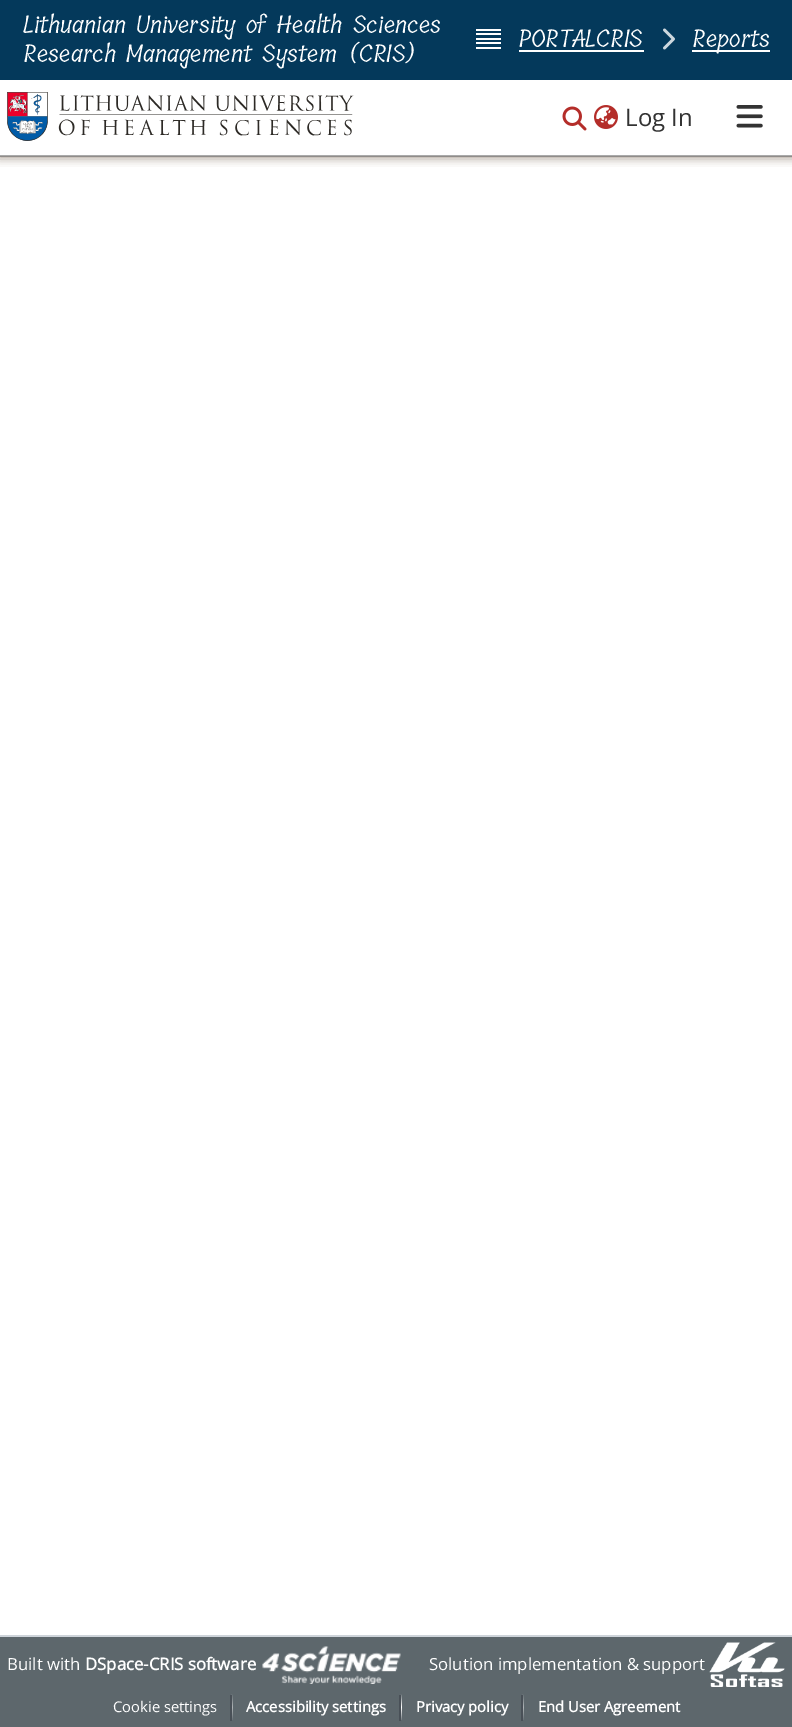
%!PS-Adobe-3.0
%%BoundingBox: 0 0 792 1727
%%LanguageLevel: 3
%%Pages: 1
%%EndComments
%%BeginProlog
/setalpha { dup .setfillconstantalpha .setstrokeconstantalpha } def
/rrect { 5 dict begin { /r /h /w /y /x } { exch def } forall
  x r add y moveto x w add y 2 copy h add r arct x w add y h add x 1 index r arct
  x y h add x y r arct x y 2 copy exch w add exch r arct closepath end } def
/softshadow { 12 dict begin { /a /b /q /h /w /y /x } { exch def } forall gsave /was 0 def
  9 -2 -9 { dup b mul 4 div /e exch def 1 sub .425 mul 2.718 exch exp 1 add a .99 .min exch div /now exch def
    1 1 now sub 1 was sub div sub setalpha /was now def
    w h .min e 2 mul add 0 gt { x e sub y e sub w e 2 mul add h e 2 mul add
      q e add b .6 mul add w h .min 2 div e add .min 0 .max rrect fill } if } for grestore end } def
/drawimage { 5 dict begin { /h /w /y /x /name } { exch def } forall
  gsave x y translate w h scale
  w h 8 [w 0 0 h 0 0] name (r) file false 3 colorimage grestore end } def
%%EndProlog
%%BeginSetup
<< /PageSize [792 1727] /PageUsesTransparency true >> setpagedevice
%%EndSetup
%%Page: 1 1
0 .pushpdf14devicefilter
0 1727 translate 1 -1 scale
4 setmiterlimit
1 setgray
0 0 792 1727 rectfill
gsave
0 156 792 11 rectclip
0.408 0.341 0.267 setrgbcolor
-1 -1 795 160 0 4.5 0.5 softshadow
grestore
0.5 setalpha
0.333 setgray
0 155 792 2 rectfill
1 setalpha
0.016 0.224 0.357 setrgbcolor
0 0 792 80 rectfill
1 setgray
476 29 25 2 rectfill
476 33 25 2 rectfill
476 38 25 2 rectfill
476 42 25 2 rectfill
476 47 25 2 rectfill
519 50 125 2 rectfill
(images/1.raw) 663 28 12 22 drawimage
692 50 78 2 rectfill
(images/2.raw) 7 92 347 49 drawimage
(images/3.raw) 562 106 25 25 drawimage
(images/4.raw) 594 105 24 24 drawimage
(images/5.raw) 736 105 27 23 drawimage
0.365 0.404 0.424 setrgbcolor
0 1637 792 90 rectfill
0.808 0.831 0.855 setrgbcolor
0 1635 792 2 rectfill
(images/6.raw) 262 1646 139 38 drawimage
(images/7.raw) 709 1642 76 45 drawimage
(images/8.raw) 231 1694 2 26 drawimage
0.286 0.314 0.341 setrgbcolor
230 1695 2 26 rectfill
(images/9.raw) 400 1694 2 26 drawimage
399 1695 2 26 rectfill
(images/10.raw) 522 1694 2 26 drawimage
521 1695 2 26 rectfill
/Tillana-Regular [24 0 0 -24 0 0] selectfont
1 setgray
23 33 moveto (Lithuanian University of Health Sciences) show
23 62 moveto (Research Management System \(CRIS\)) show
518 47 moveto (PORTALCRIS) show
692 47 moveto (Reports) show
/OpenSans-Regular [24 0 0 -24 0 0] selectfont
0.2 setgray
625 126 moveto (Log In) show
/OpenSans-Regular [16.75 0 0 -16.75 0 0] selectfont
1 setgray
7 1670 moveto (Built with) show
/OpenSans-Bold [16.75 0 0 -16.75 0 0] selectfont
85 1670 moveto (DSpace-CRIS software) show
/OpenSans-Regular [16.75 0 0 -16.75 0 0] selectfont
429 1670 moveto (Solution implementation & support) show
/OpenSans-Regular [14.75 0 0 -14.75 0 0] selectfont
113 1712 moveto (Cookie settings) show
/OpenSans-Bold [14.75 0 0 -14.75 0 0] selectfont
246 1712 moveto (Accessibility settings) show
416 1712 moveto (Privacy policy) show
538 1712 moveto (End User Agreement) show
.poppdf14devicefilter showpage
%%EOF
